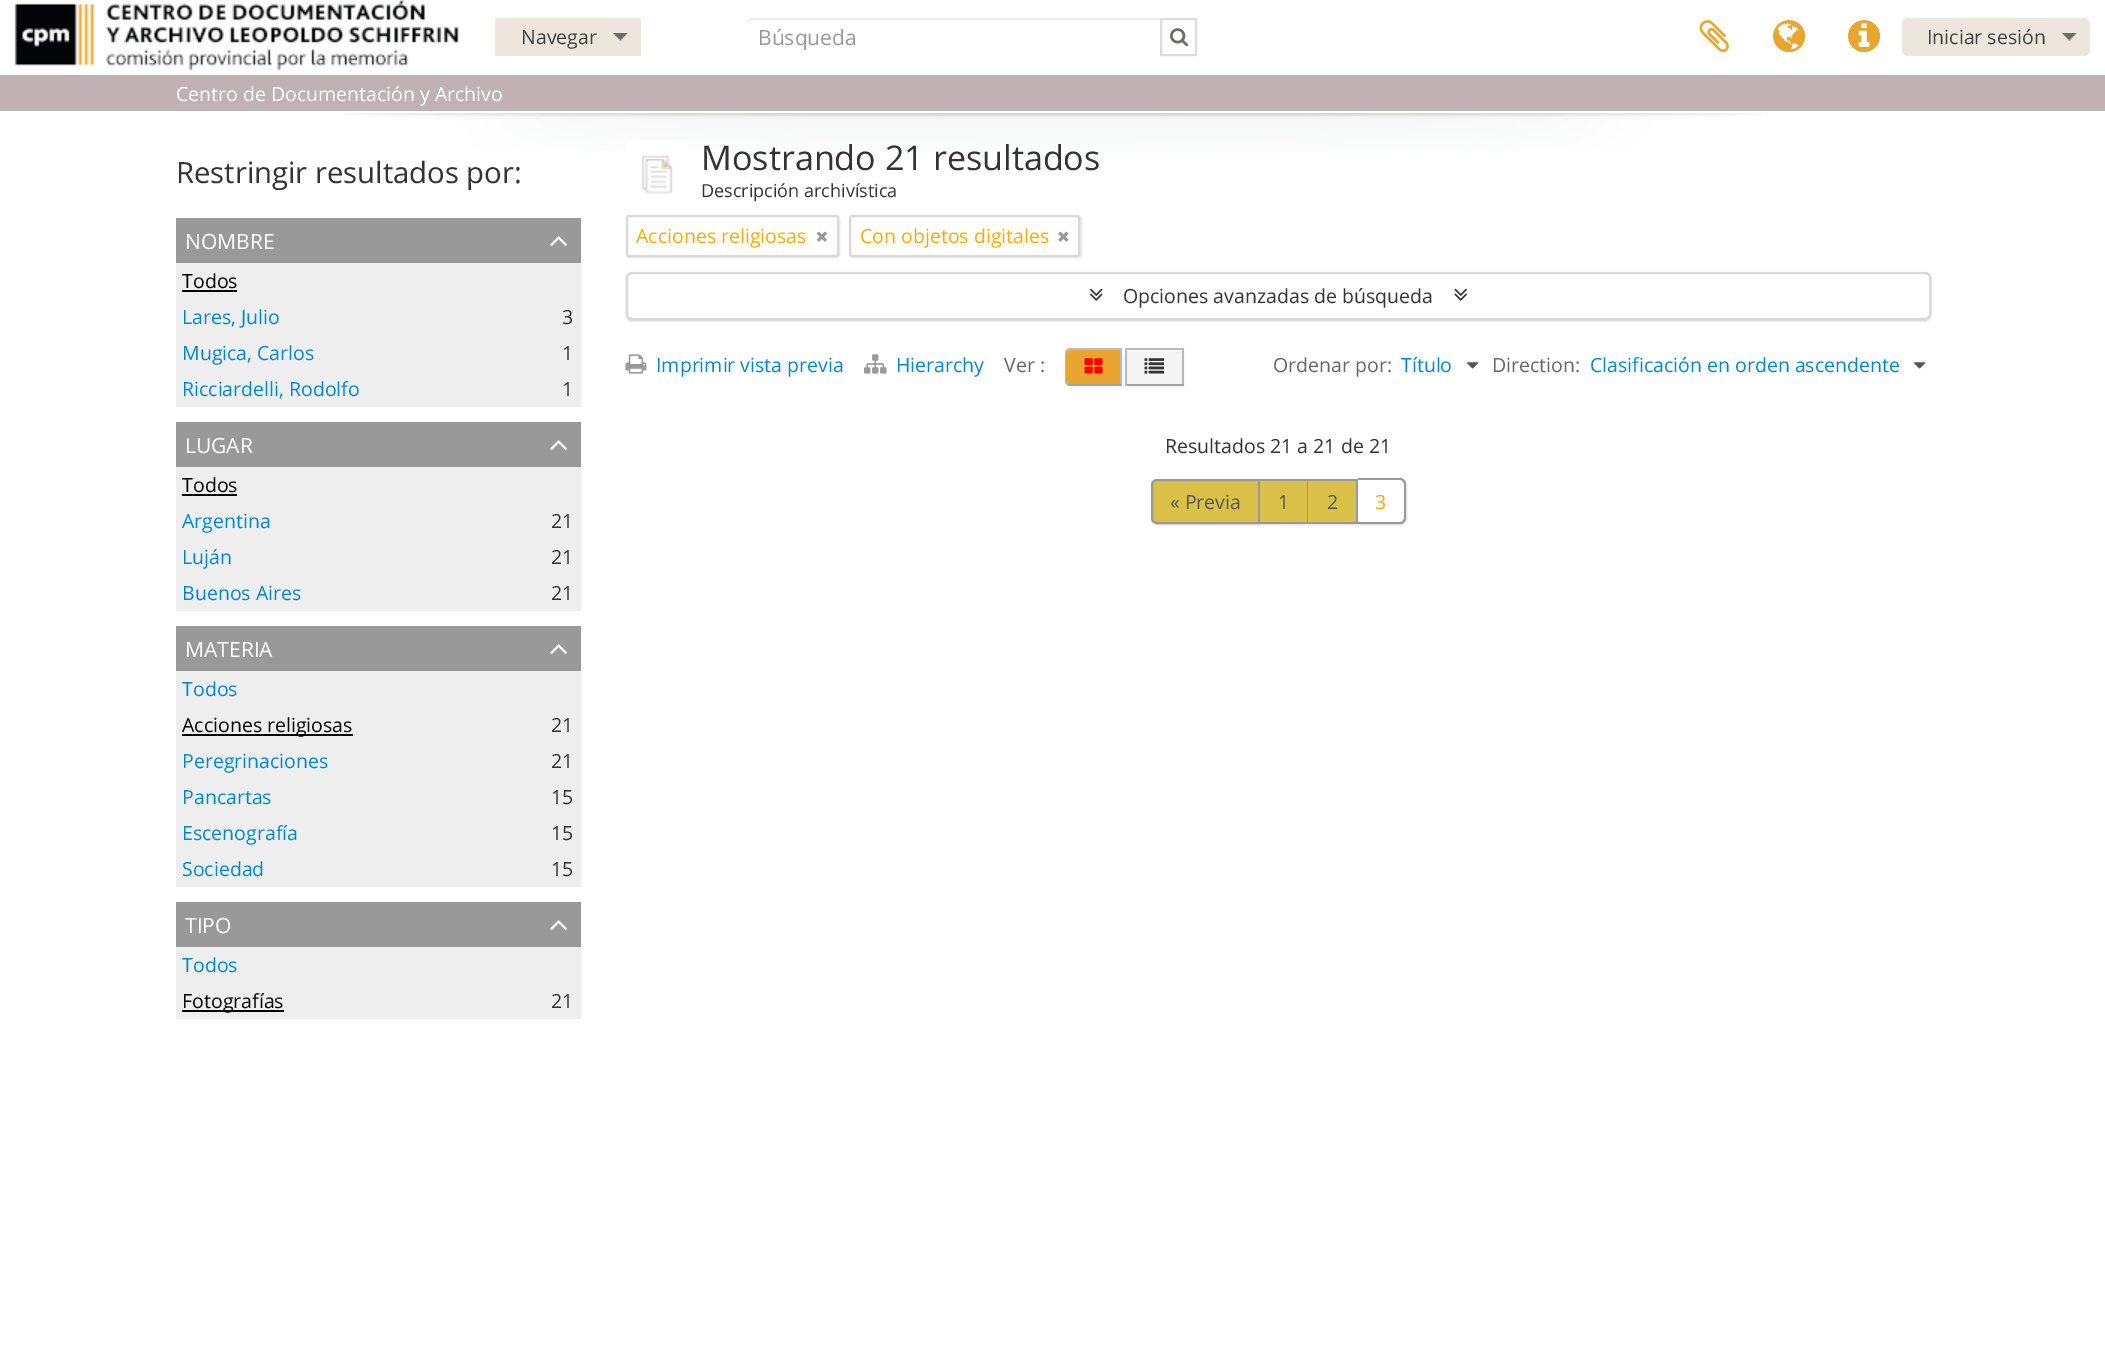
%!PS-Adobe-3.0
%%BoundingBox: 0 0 2105 1368
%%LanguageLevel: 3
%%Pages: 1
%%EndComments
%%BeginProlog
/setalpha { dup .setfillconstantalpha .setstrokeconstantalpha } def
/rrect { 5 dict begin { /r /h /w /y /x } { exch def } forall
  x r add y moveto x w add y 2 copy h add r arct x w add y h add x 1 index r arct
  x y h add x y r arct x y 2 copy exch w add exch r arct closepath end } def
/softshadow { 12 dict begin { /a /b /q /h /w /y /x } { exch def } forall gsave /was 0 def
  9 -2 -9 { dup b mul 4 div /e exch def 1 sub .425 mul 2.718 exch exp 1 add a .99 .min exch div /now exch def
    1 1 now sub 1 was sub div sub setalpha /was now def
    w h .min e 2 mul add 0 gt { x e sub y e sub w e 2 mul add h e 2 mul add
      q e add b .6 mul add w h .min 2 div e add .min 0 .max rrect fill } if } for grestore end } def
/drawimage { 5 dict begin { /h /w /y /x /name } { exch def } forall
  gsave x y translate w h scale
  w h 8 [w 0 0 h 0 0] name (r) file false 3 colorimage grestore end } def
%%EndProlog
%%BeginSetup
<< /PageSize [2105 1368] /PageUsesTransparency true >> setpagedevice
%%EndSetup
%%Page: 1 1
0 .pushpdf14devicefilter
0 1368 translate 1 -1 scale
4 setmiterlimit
1 setgray
0 0 2105 1368 rectfill
(images/1.raw) 14 0 446 71 drawimage
0.929 0.902 0.863 setrgbcolor
495 18 146 38 rectfill
(images/2.raw) 613 33 15 8 drawimage
0.925 setgray
newpath 753 20 moveto 1191 20 lineto 1194 20 1197 22 1197 26 curveto 1197 24 lineto 1197 21 1194 18 1191 18 curveto 753 18 lineto 750 18 747 21 747 24 curveto 747 26 lineto 747 22 750 20 753 20 curveto closepath fill
1 setgray
1192 20 3 1 rectfill
0.867 setgray
2 setlinewidth
1161 19 35 36 rectstroke
(images/3.raw) 1170 28 19 19 drawimage
(images/4.raw) 1699 20 30 33 drawimage
(images/5.raw) 1773 20 33 33 drawimage
(images/6.raw) 1848 20 33 33 drawimage
0.929 0.902 0.863 setrgbcolor
1902 18 188 38 6 rrect fill
(images/2.raw) 2062 33 15 8 drawimage
0.749 0.694 0.706 setrgbcolor
0 75 2105 36 rectfill
(images/7.raw) 343 113 1420 39 drawimage
0.6 setgray
176 218 405 45 rectfill
(images/8.raw) 550 236 17 10 drawimage
0.933 setgray
176 263 405 144 rectfill
0 setgray
182 290 55 2 rectfill
0.6 setgray
176 422 405 45 rectfill
(images/8.raw) 550 440 17 10 drawimage
0.933 setgray
176 467 405 144 rectfill
0 setgray
182 494 55 2 rectfill
0.6 setgray
176 626 405 45 rectfill
(images/8.raw) 550 644 17 10 drawimage
0.933 setgray
176 671 405 216 rectfill
0 setgray
182 734 171 2 rectfill
0.6 setgray
176 902 405 45 rectfill
(images/8.raw) 550 920 17 10 drawimage
0.933 setgray
176 947 405 72 rectfill
0 setgray
182 1010 102 2 rectfill
(images/9.raw) 626 140 62 54 drawimage
627 216 213 42 3 1 0.1 softshadow
1 setgray
627 216 211 40 2 rrect gsave fill grestore
0.851 setgray
stroke
(images/10.raw) 817 231 10 11 drawimage
0 setgray
851 216 231 42 3 1 0.1 softshadow
1 setgray
850 216 229 40 2 rrect gsave fill grestore
0.851 setgray
stroke
(images/11.raw) 1058 231 11 11 drawimage
0 setgray
626 273 1305 48 6 1 0.2 softshadow
1 setgray
627 273 1303 46 5 rrect gsave fill grestore
0.851 setgray
stroke
(images/12.raw) 1090 288 13 13 drawimage
(images/13.raw) 1454 288 13 13 drawimage
(images/14.raw) 625 354 22 20 drawimage
(images/15.raw) 864 354 23 20 drawimage
0 setgray
1125 350 59 37 0 1.5 0.05 softshadow
0.969 setgray
1127 351 55 1 rectfill
0.733 setgray
1125 348 59 2 rectfill
1182 348 2 38 rectfill
0.635 setgray
1125 384 59 2 rectfill
0.733 setgray
1125 348 2 38 rectfill
0 setgray
1065 350 57 37 6 1.5 0.05 softshadow
0.91 0.651 0.188 setrgbcolor
newpath 1071 348 moveto 1122 348 lineto 1122 386 lineto 1071 386 lineto 1067.5 386 1065 383.5 1065 380 curveto 1065 354 lineto 1065 350.5 1067.5 348 1071 348 curveto closepath fill
0.733 setgray
newpath 1071 348 moveto 1070 348 1068 349 1067 350 curveto 1068 351 lineto 1071 350 lineto 1120 350 lineto 1122 348 lineto closepath fill
newpath 1122 348 moveto 1120 350 lineto 1120 383.5 lineto 1122 385.5 lineto closepath fill
0.635 setgray
newpath 1122 386 moveto 1069 386 lineto 1067 384 lineto 1068 383 lineto 1069 384 1070 384 1071 384 curveto 1120 384 lineto closepath fill
0.733 setgray
newpath 1065 354 moveto 1065 380 lineto 1065 381.5 1065.5 383 1066.5 384 curveto 1068 383 lineto 1067 382 1066 381 1066 380 curveto 1066 354 lineto 1066 353 1067 352 1068 351 curveto 1067 350 lineto 1066 351 1065 352.5 1065 354 curveto closepath fill
(images/16.raw) 1084 358 19 16 drawimage
0.961 setgray
1128 353 53 31 rectfill
(images/17.raw) 1144 358 20 16 drawimage
(images/18.raw) 1467 362 12 7 drawimage
(images/18.raw) 1914 362 12 7 drawimage
gsave
newpath 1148 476 moveto 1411 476 lineto 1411 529 lineto 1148 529 lineto closepath 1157 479 moveto 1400 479 lineto 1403.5 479 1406 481.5 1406 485 curveto 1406 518 lineto 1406 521.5 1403.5 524 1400 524 curveto 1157 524 lineto 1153.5 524 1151 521.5 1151 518 curveto 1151 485 lineto 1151 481.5 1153.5 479 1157 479 curveto closepath eoclip newpath
0.098 setgray
1152 480 255 45 6 1 0.15 softshadow
grestore
0.851 0.757 0.282 setrgbcolor
newpath 1157 480 moveto 1259 480 lineto 1259 523 lineto 1157 523 lineto 1154 523 1152 521 1152 518 curveto 1152 485 lineto 1152 482 1154 480 1157 480 curveto closepath gsave fill grestore
0.6 setgray
stroke
0.851 0.757 0.282 setrgbcolor
1260 481 47 41 rectfill
0.6 setgray
1260 479 98 2 rectfill
1307 479 1 45 rectfill
1260 522 48 2 rectfill
0.851 0.757 0.282 setrgbcolor
1308 481 48 41 rectfill
0.6 setgray
1356 479 2 45 rectfill
1308 522 50 2 rectfill
newpath 1358 478 moveto 1400 478 lineto 1403 478 1406 481 1406 484 curveto 1406 518 lineto 1406 521 1403 524 1400 524 curveto 1358 524 lineto closepath 1358 480 moveto 1400 480 lineto 1402 480 1404 482 1404 484 curveto 1404 518 lineto 1404 520 1402 522 1400 522 curveto 1358 522 lineto closepath eofill
/OpenSans-Regular [19.5 0 0 -19.5 0 0] selectfont
0.251 setgray
521 44 moveto (Navegar) show
/OpenSans-Regular [21 0 0 -21 0 0] selectfont
0.6 setgray
758 45 moveto (Búsqueda) show
/OpenSans-Regular [19.5 0 0 -19.5 0 0] selectfont
0.251 setgray
1927 44 moveto (Iniciar sesión) show
1 setgray
176 101 moveto (Centro de Documentación y Archivo) show
/OpenSans-Regular [29.25 0 0 -29.25 0 0] selectfont
0.2 setgray
176 183 moveto (Restringir resultados por:) show
/OpenSans-Regular [21 0 0 -21 0 0] selectfont
1 setgray
185 249 moveto (NOMBRE) show
/OpenSans-Regular [19.5 0 0 -19.5 0 0] selectfont
0 setgray
182 288 moveto (Todos) show
0 0.533 0.8 setrgbcolor
182 324 moveto (Lares, Julio) show
0.2 setgray
562 324 moveto (3) show
0 0.533 0.8 setrgbcolor
182 360 moveto (Mugica, Carlos) show
0.2 setgray
562 360 moveto (1) show
0 0.533 0.8 setrgbcolor
182 396 moveto (Ricciardelli, Rodolfo) show
0.2 setgray
562 396 moveto (1) show
/OpenSans-Regular [21 0 0 -21 0 0] selectfont
1 setgray
185 453 moveto (LUGAR) show
/OpenSans-Regular [19.5 0 0 -19.5 0 0] selectfont
0 setgray
182 492 moveto (Todos) show
0 0.533 0.8 setrgbcolor
182 528 moveto (Argentina) show
0.2 setgray
551 528 moveto (21) show
0 0.533 0.8 setrgbcolor
182 564 moveto (Luján) show
0.2 setgray
551 564 moveto (21) show
0 0.533 0.8 setrgbcolor
182 600 moveto (Buenos Aires) show
0.2 setgray
551 600 moveto (21) show
/OpenSans-Regular [21 0 0 -21 0 0] selectfont
1 setgray
185 657 moveto (MATERIA) show
/OpenSans-Regular [19.5 0 0 -19.5 0 0] selectfont
0 0.533 0.8 setrgbcolor
182 696 moveto (Todos) show
0 setgray
182 732 moveto (Acciones religiosas) show
0.2 setgray
551 732 moveto (21) show
0 0.533 0.8 setrgbcolor
182 768 moveto (Peregrinaciones) show
0.2 setgray
551 768 moveto (21) show
0 0.533 0.8 setrgbcolor
182 804 moveto (Pancartas) show
0.2 setgray
551 804 moveto (15) show
0 0.533 0.8 setrgbcolor
182 840 moveto (Escenografía) show
0.2 setgray
551 840 moveto (15) show
0 0.533 0.8 setrgbcolor
182 876 moveto (Sociedad) show
0.2 setgray
551 876 moveto (15) show
/OpenSans-Regular [21 0 0 -21 0 0] selectfont
1 setgray
185 933 moveto (TIPO) show
/OpenSans-Regular [19.5 0 0 -19.5 0 0] selectfont
0 0.533 0.8 setrgbcolor
182 972 moveto (Todos) show
0 setgray
182 1008 moveto (Fotografías) show
0.2 setgray
551 1008 moveto (21) show
/OpenSans-Regular [34.1 0 0 -34.1 0 0] selectfont
701 170 moveto (Mostrando 21 resultados) show
/OpenSans-Regular [18 0 0 -18 0 0] selectfont
701 197 moveto (Descripción archivística) show
/OpenSans-Regular [19.5 0 0 -19.5 0 0] selectfont
0.965 0.675 0 setrgbcolor
636 243 moveto (Acciones religiosas) show
860 243 moveto (Con objetos digitales) show
0.2 setgray
1123 303 moveto (Opciones avanzadas de búsqueda) show
0 0.533 0.8 setrgbcolor
656 372 moveto (Imprimir vista previa) show
896 372 moveto (Hierarchy) show
0.4 setgray
1004 372 moveto (Ver :) show
1273 372 moveto (Ordenar por:) show
0 0.533 0.8 setrgbcolor
1401 372 moveto (Título) show
0.4 setgray
1492 372 moveto (Direction:) show
0 0.533 0.8 setrgbcolor
1590 372 moveto (Clasificación en orden ascendente) show
0.2 setgray
1165 453 moveto (Resultados 21 a 21 de 21) show
0.333 setgray
1170 509 moveto (« Previa) show
1278 509 moveto (1) show
1327 509 moveto (2) show
0.965 0.675 0 setrgbcolor
1375 509 moveto (3) show
.poppdf14devicefilter showpage
%%EOF
